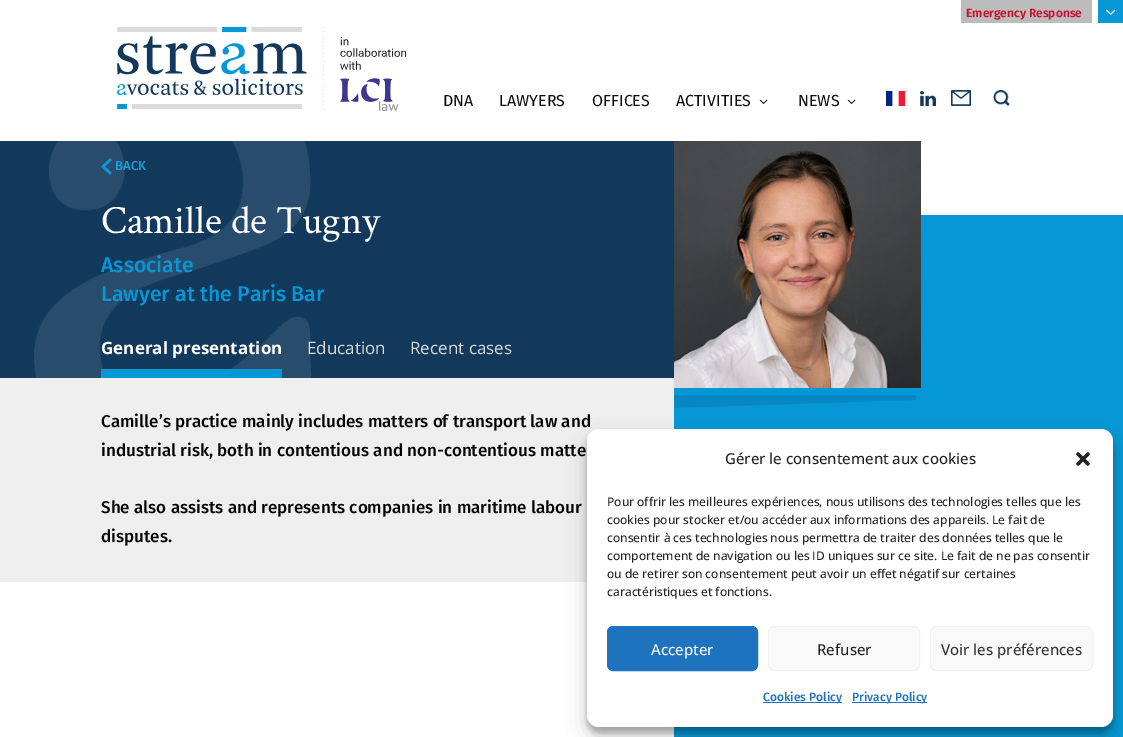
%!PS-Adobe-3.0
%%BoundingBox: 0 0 1123 737
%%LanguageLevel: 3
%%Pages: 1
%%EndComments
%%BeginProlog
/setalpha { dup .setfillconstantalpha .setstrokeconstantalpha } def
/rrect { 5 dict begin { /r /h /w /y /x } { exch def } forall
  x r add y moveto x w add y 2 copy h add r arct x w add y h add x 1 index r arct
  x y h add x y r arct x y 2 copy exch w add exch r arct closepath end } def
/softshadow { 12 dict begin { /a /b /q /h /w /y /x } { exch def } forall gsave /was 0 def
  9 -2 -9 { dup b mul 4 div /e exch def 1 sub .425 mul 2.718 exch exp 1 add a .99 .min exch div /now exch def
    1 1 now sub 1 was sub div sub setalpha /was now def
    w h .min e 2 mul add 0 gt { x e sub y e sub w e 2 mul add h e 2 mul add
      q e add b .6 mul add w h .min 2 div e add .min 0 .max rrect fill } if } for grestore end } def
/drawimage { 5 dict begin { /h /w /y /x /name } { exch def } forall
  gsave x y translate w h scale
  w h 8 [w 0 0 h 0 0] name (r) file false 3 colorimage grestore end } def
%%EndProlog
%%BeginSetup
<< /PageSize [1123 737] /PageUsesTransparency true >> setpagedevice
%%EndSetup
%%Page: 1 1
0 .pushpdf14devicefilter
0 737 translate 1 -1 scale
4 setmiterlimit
1 setgray
0 0 1123 737 rectfill
0.737 setgray
961 0 131 23 rectfill
0.024 0.596 0.839 setrgbcolor
1098 0 25 23 rectfill
(images/1.raw) 1106 9 10 6 drawimage
(images/2.raw) 117 27 290 84 drawimage
(images/3.raw) 759 99 9 5 drawimage
(images/3.raw) 847 99 9 5 drawimage
(images/4.raw) 886 91 19 15 drawimage
(images/5.raw) 920 91 16 15 drawimage
(images/6.raw) 951 90 20 16 drawimage
(images/7.raw) 993 90 17 16 drawimage
0.071 0.224 0.361 setrgbcolor
0 141 674 237 rectfill
(images/8.raw) 34 141 278 237 drawimage
(images/9.raw) 101 158 11 17 drawimage
0.024 0.596 0.839 setrgbcolor
101 369 181 9 rectfill
0.937 setgray
0 378 674 204 rectfill
0.024 0.596 0.839 setrgbcolor
674 215 449 522 rectfill
(images/10.raw) 674 141 247 247 drawimage
(images/11.raw) 674 395 242 13 drawimage
0 setgray
587 435 526 298 12 3 0.23 softshadow
587 439 526 298 12 10 0.19 softshadow
/FiraSans-SemiBold [12 0 0 -12 0 0] selectfont
0.784 0.063 0.18 setrgbcolor
966 17 moveto (Emergency Response) show
/FiraSans-Regular [16 0 0 -16 0 0] selectfont
0.051 setgray
443 106 moveto (DNA) show
499 106 moveto (LAWYERS) show
592 106 moveto (OFFICES) show
676 106 moveto (ACTIVITIES) show
798 106 moveto (NEWS) show
/FiraSans-Medium [13 0 0 -13 0 0] selectfont
0.102 0.627 0.851 setrgbcolor
115 170 moveto (BACK) show
/CrimsonText-Regular [40 0 0 -40 0 0] selectfont
1 setgray
101 233 moveto (Camille de Tugny) show
/FiraSans-Medium [21.25 0 0 -21.25 0 0] selectfont
0.024 0.596 0.839 setrgbcolor
101 272 moveto (Associate) show
101 301 moveto (Lawyer at the Paris Bar) show
/OpenSans-Bold [17 0 0 -17 0 0] selectfont
1 setgray
101 354 moveto (General presentation) show
/OpenSans-Regular [17 0 0 -17 0 0] selectfont
0.855 setgray
307 354 moveto (Education) show
410 354 moveto (Recent cases) show
/FiraSans-Medium [17 0 0 -17 0 0] selectfont
0.008 setgray
101 427 moveto (Camille’s practice mainly includes matters of transport law and) show
101 456 moveto (industrial risk, both in contentious and non-contentious matte) show
101 513 moveto (She also assists and represents companies in maritime labour) show
101 542 moveto (disputes.) show
1 setgray
587 429 526 298 12 rrect fill
/OpenSans-Medium [15 0 0 -15 0 0] selectfont
0.133 setgray
725 464 moveto (Gérer le consentement aux cookies) show
(images/12.raw) 1076 452 14 14 drawimage
/OpenSans-Medium [12 0 0 -12 0 0] selectfont
607 506 moveto (Pour offrir les meilleures expériences, nous utilisons des technologies telles que les) show
607 524 moveto (cookies pour stocker et/ou accéder aux informations des appareils. Le fait de) show
607 542 moveto (consentir à ces technologies nous permettra de traiter des données telles que le) show
607 560 moveto (comportement de navigation ou les ID uniques sur ce site. Le fait de ne pas consentir) show
607 578 moveto (ou de retirer son consentement peut avoir un effet négatif sur certaines) show
607 596 moveto (caractéristiques et fonctions.) show
0.118 0.451 0.745 setrgbcolor
607.5 626.5 150 44 5.5 rrect gsave fill grestore
stroke
/OpenSans-Medium [15 0 0 -15 0 0] selectfont
1 setgray
651 655 moveto (Accepter) show
0.976 setgray
768.5 626.5 151 44 5.5 rrect gsave fill grestore
0.949 setgray
stroke
0.133 setgray
817 655 moveto (Refuser) show
0.976 setgray
930.5 626.5 162 44 5.5 rrect gsave fill grestore
0.949 setgray
stroke
0.2 setgray
941 655 moveto (Voir les préférences) show
0.118 0.451 0.745 setrgbcolor
763 702 79 1 rectfill
/FiraSans-Medium [12 0 0 -12 0 0] selectfont
763 701 moveto (Cookies Policy) show
852 702 75 1 rectfill
852 701 moveto (Privacy Policy) show
.poppdf14devicefilter showpage
%%EOF
